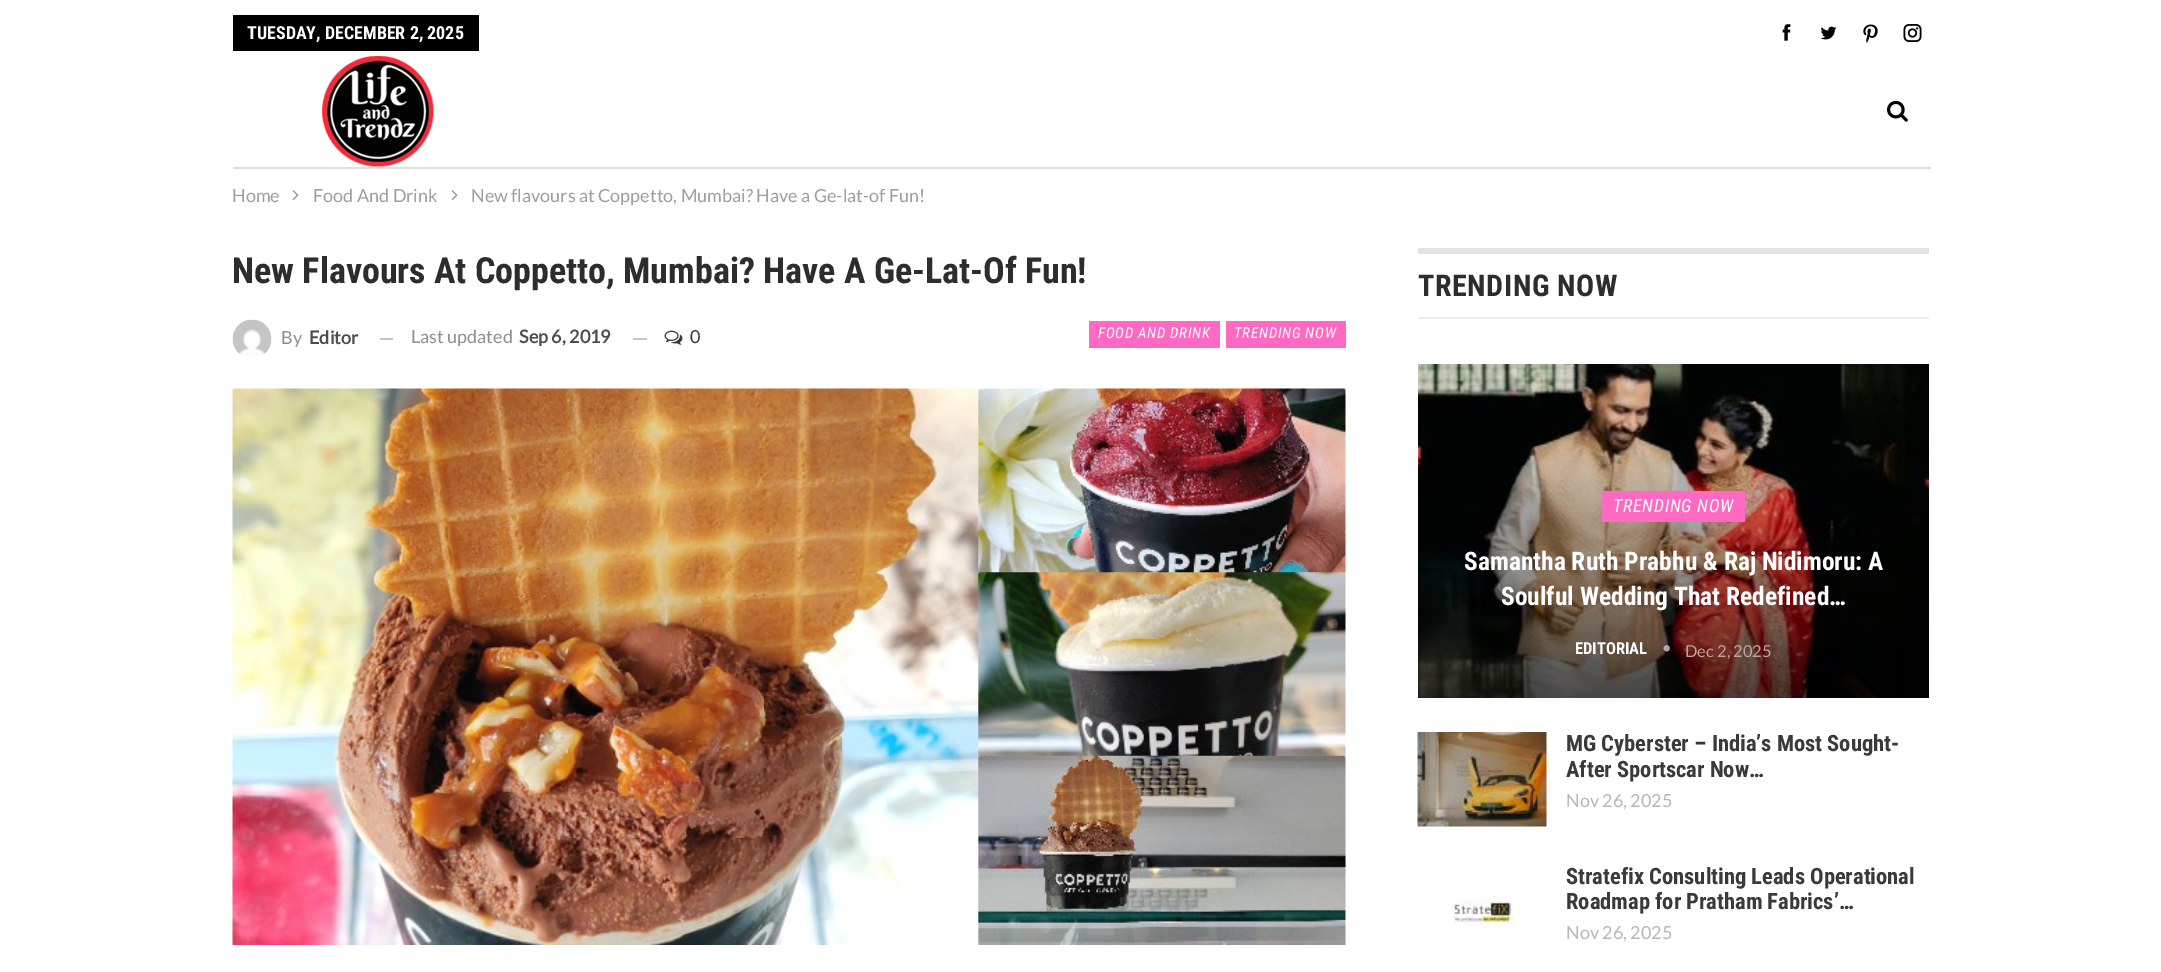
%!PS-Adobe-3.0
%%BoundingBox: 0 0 2161 972
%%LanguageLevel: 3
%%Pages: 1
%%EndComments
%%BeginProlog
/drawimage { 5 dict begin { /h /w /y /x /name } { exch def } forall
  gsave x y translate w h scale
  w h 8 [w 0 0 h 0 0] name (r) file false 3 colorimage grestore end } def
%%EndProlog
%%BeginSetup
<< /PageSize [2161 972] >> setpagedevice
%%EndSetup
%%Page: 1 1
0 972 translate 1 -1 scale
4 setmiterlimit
1 setgray
0 0 2161 972 rectfill
0 setgray
233 15 246 36 rectfill
(images/1.raw) 1782 24 9 17 drawimage
(images/2.raw) 1820 26 17 14 drawimage
(images/3.raw) 1863 24 15 19 drawimage
(images/4.raw) 1903 24 19 18 drawimage
0.871 setgray
233 167 1698 2 rectfill
(images/5.raw) 322 56 112 111 drawimage
(images/6.raw) 1887 100 21 22 drawimage
(images/7.raw) 292 190 7 11 drawimage
(images/7.raw) 451 190 7 11 drawimage
(images/8.raw) 232 319 40 37 drawimage
0.769 setgray
380 338 13 2 rectfill
633 338 14 2 rectfill
(images/9.raw) 664 330 19 15 drawimage
1 0.412 0.757 setrgbcolor
1089 321 131 27 rectfill
1226 321 120 27 rectfill
(images/10.raw) 232 388 1114 557 drawimage
0.89 setgray
1418 248 511 6 rectfill
0.929 setgray
1418 317 511 2 rectfill
(images/11.raw) 1418 364 511 334 drawimage
1 0.412 0.757 setrgbcolor
1602 491 143 31 rectfill
(images/12.raw) 1663 645 7 7 drawimage
(images/13.raw) 1417 732 130 95 drawimage
(images/14.raw) 1453 887 62 50 drawimage
/RobotoCondensed-Bold [18 0 0 -18 0 0] selectfont
1 setgray
247 39 moveto (TUESDAY, DECEMBER 2, 2025) show
/Lato-Regular [18 0 0 -18 0 0] selectfont
0.62 setgray
232 202 moveto (Home) show
313 202 moveto (Food And Drink) show
471 202 moveto (New flavours at Coppetto, Mumbai? Have a Ge-lat-of Fun!) show
/RobotoCondensed-Bold [36 0 0 -36 0 0] selectfont
0.176 setgray
232 283 moveto (New Flavours At Coppetto, Mumbai? Have A Ge-Lat-Of Fun!) show
/Lato-Regular [18 0 0 -18 0 0] selectfont
0.561 setgray
281 344 moveto (By) show
/Lato-Bold [18 0 0 -18 0 0] selectfont
0.302 setgray
309 344 moveto (Editor) show
/Lato-Regular [18 0 0 -18 0 0] selectfont
0.561 setgray
411 343 moveto (Last updated) show
/Lato-Bold [18 0 0 -18 0 0] selectfont
0.302 setgray
519 343 moveto (Sep 6, 2019) show
/Lato-Regular [18 0 0 -18 0 0] selectfont
0.227 setgray
690 343 moveto (0) show
/RobotoCondensed-Italic [15 0 0 -15 0 0] selectfont
1 setgray
1098 338 moveto 0.75 0 (FOOD AND DRINK) ashow
1234 338 moveto 0.75 0 (TRENDING NOW) ashow
/RobotoCondensed-Bold [30 0 0 -30 0 0] selectfont
0.176 setgray
1418 296 moveto 0.6 0 (TRENDING NOW) ashow
/RobotoCondensed-Italic [18 0 0 -18 0 0] selectfont
1 setgray
1613 512 moveto 0.75 0 (TRENDING NOW) ashow
/RobotoCondensed-Bold [25.5 0 0 -25.5 0 0] selectfont
1464 570 moveto (Samantha Ruth Prabhu & Raj Nidimoru: A) show
1501 605 moveto (Soulful Wedding That Redefined…) show
/RobotoCondensed-Bold [16.5 0 0 -16.5 0 0] selectfont
1575 654 moveto (EDITORIAL) show
/Lato-Regular [16.5 0 0 -16.5 0 0] selectfont
0.741 0.643 0.631 setrgbcolor
1685 657 moveto (Dec 2, 2025) show
/RobotoCondensed-Bold [22.5 0 0 -22.5 0 0] selectfont
0.227 setgray
1566 751 moveto (MG Cyberster – India’s Most Sought-) show
1566 777 moveto (After Sportscar Now…) show
/Lato-Regular [18 0 0 -18 0 0] selectfont
0.718 setgray
1566 807 moveto (Nov 26, 2025) show
/RobotoCondensed-Bold [22.5 0 0 -22.5 0 0] selectfont
0.227 setgray
1566 884 moveto (Stratefix Consulting Leads Operational) show
1566 909 moveto (Roadmap for Pratham Fabrics’…) show
/Lato-Regular [18 0 0 -18 0 0] selectfont
0.718 setgray
1566 939 moveto (Nov 26, 2025) show
showpage
%%EOF
